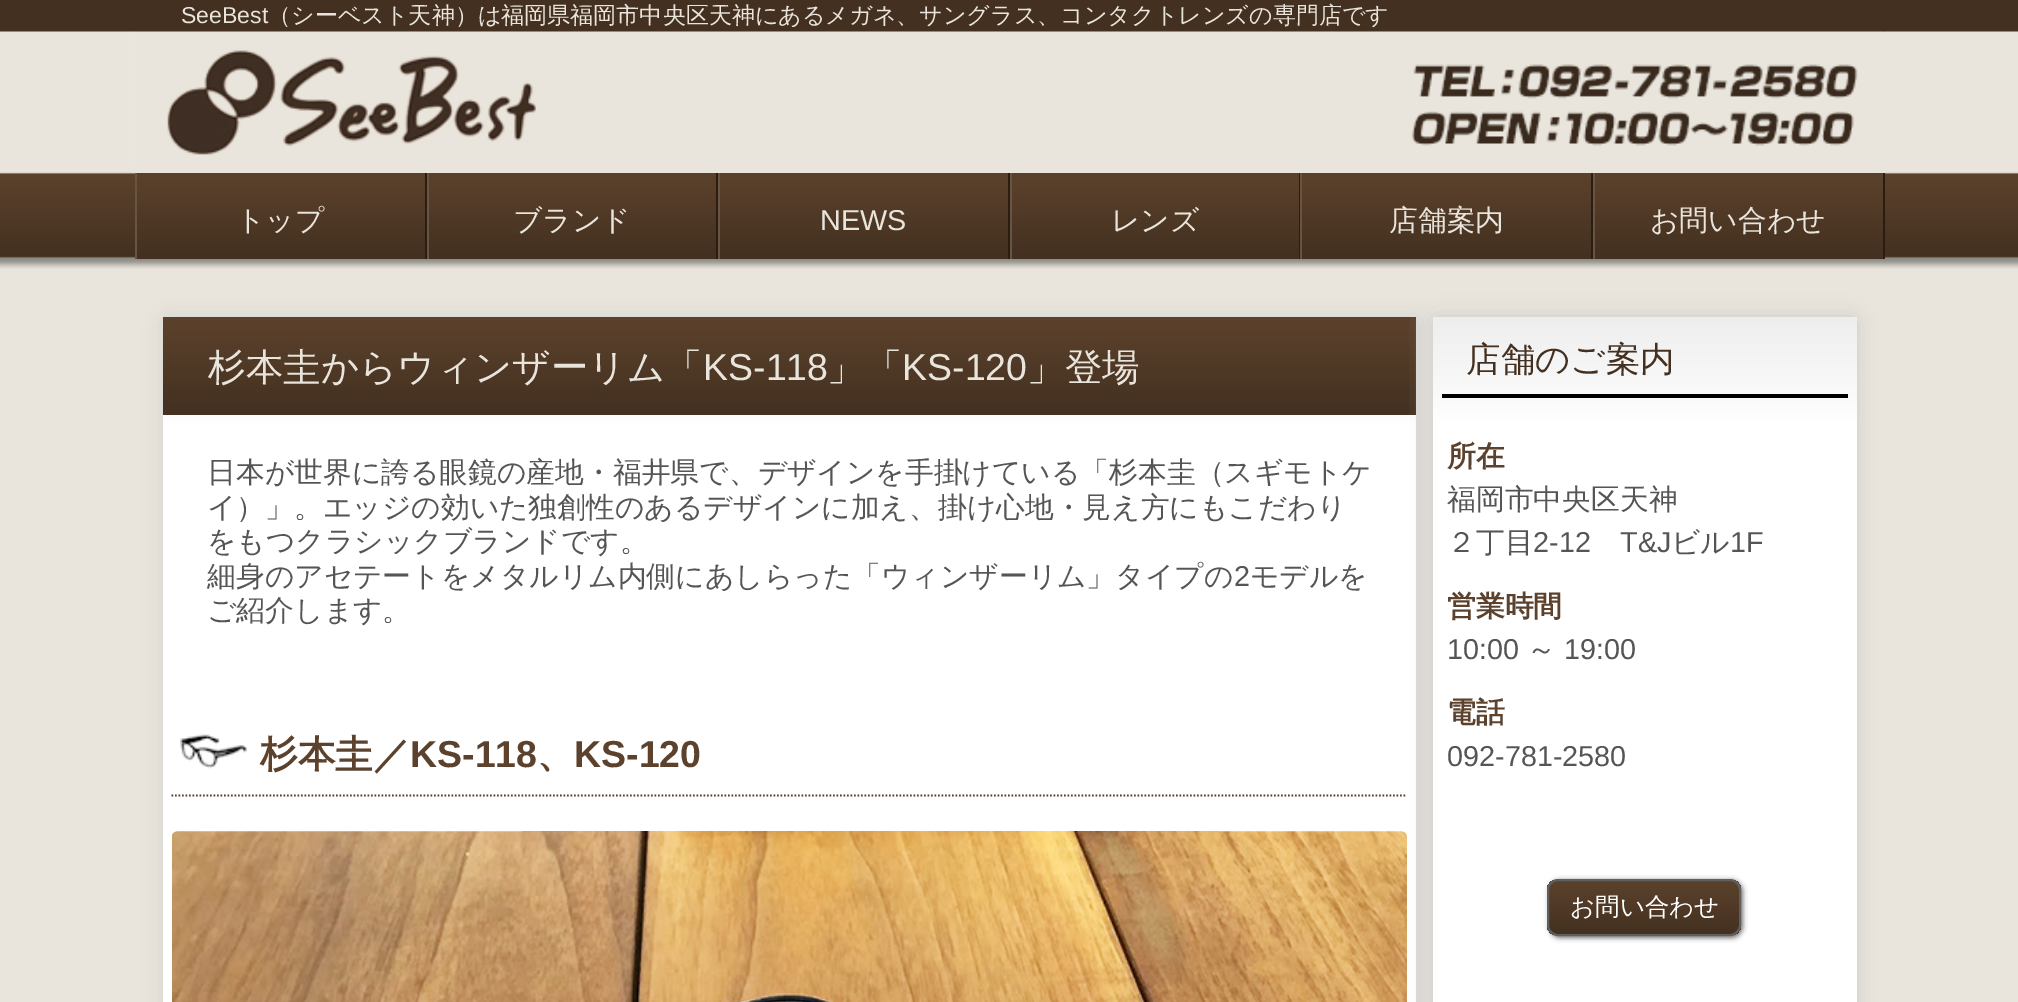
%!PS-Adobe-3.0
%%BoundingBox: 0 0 2018 1002
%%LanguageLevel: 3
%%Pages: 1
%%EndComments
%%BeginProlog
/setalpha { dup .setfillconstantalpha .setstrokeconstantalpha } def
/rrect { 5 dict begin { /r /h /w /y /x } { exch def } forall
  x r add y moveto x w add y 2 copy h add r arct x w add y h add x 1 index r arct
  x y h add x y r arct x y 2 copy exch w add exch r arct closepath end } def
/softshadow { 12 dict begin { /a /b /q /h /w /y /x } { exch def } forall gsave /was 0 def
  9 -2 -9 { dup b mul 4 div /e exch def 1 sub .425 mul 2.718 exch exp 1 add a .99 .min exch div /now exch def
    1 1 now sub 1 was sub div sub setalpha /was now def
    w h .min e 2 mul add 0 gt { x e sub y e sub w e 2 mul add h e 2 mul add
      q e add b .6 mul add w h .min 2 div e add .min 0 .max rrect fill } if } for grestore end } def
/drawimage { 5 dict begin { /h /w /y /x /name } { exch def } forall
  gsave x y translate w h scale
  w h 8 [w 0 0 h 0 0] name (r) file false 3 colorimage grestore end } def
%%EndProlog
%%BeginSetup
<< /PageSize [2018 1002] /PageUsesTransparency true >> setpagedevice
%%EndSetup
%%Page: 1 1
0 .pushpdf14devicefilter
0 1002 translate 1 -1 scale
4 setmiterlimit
0.914 0.898 0.863 setrgbcolor
0 0 2018 1002 rectfill
(images/1.raw) 0 0 2018 269 drawimage
0.263 0.188 0.125 setrgbcolor
135 31 1750 1 rectfill
(images/2.raw) 134 31 1751 143 drawimage
gsave newpath 137 173 moveto 425 173 lineto 425 259 lineto 137 259 lineto closepath clip newpath
<< /ShadingType 2 /ColorSpace /DeviceRGB /Coords [281 173 281 259] /Extend [true true] /Function << /FunctionType 2 /Domain [0 1] /C0 [0.361 0.259 0.173] /C1 [0.263 0.188 0.125] /N 1 >> >> shfill grestore
0.169 0.118 0.067 setrgbcolor
425 173 2 86 rectfill
0.408 0.329 0.263 setrgbcolor
135 173 2 86 rectfill
gsave newpath 429 173 moveto 716 173 lineto 716 259 lineto 429 259 lineto closepath clip newpath
<< /ShadingType 2 /ColorSpace /DeviceRGB /Coords [572 173 572 259] /Extend [true true] /Function << /FunctionType 2 /Domain [0 1] /C0 [0.361 0.259 0.173] /C1 [0.263 0.188 0.125] /N 1 >> >> shfill grestore
0.169 0.118 0.067 setrgbcolor
716 173 2 86 rectfill
0.408 0.329 0.263 setrgbcolor
427 173 2 86 rectfill
gsave newpath 720 173 moveto 1008 173 lineto 1008 259 lineto 720 259 lineto closepath clip newpath
<< /ShadingType 2 /ColorSpace /DeviceRGB /Coords [864 173 864 259] /Extend [true true] /Function << /FunctionType 2 /Domain [0 1] /C0 [0.361 0.259 0.173] /C1 [0.263 0.188 0.125] /N 1 >> >> shfill grestore
0.169 0.118 0.067 setrgbcolor
1008 173 2 86 rectfill
0.408 0.329 0.263 setrgbcolor
718 173 2 86 rectfill
gsave newpath 1012 173 moveto 1299 173 lineto 1299 259 lineto 1012 259 lineto closepath clip newpath
<< /ShadingType 2 /ColorSpace /DeviceRGB /Coords [1155 173 1155 259] /Extend [true true] /Function << /FunctionType 2 /Domain [0 1] /C0 [0.361 0.259 0.173] /C1 [0.263 0.188 0.125] /N 1 >> >> shfill grestore
0.169 0.118 0.067 setrgbcolor
1299 173 1 86 rectfill
0.408 0.329 0.263 setrgbcolor
1010 173 2 86 rectfill
gsave newpath 1302 173 moveto 1591 173 lineto 1591 259 lineto 1302 259 lineto closepath clip newpath
<< /ShadingType 2 /ColorSpace /DeviceRGB /Coords [1446 173 1446 259] /Extend [true true] /Function << /FunctionType 2 /Domain [0 1] /C0 [0.361 0.259 0.173] /C1 [0.263 0.188 0.125] /N 1 >> >> shfill grestore
0.169 0.118 0.067 setrgbcolor
1591 173 2 86 rectfill
0.408 0.329 0.263 setrgbcolor
1300 173 2 86 rectfill
gsave newpath 1595 173 moveto 1883 173 lineto 1883 259 lineto 1595 259 lineto closepath clip newpath
<< /ShadingType 2 /ColorSpace /DeviceRGB /Coords [1739 173 1739 259] /Extend [true true] /Function << /FunctionType 2 /Domain [0 1] /C0 [0.361 0.259 0.173] /C1 [0.263 0.188 0.125] /N 1 >> >> shfill grestore
0.169 0.118 0.067 setrgbcolor
1883 173 2 86 rectfill
0.408 0.329 0.263 setrgbcolor
1593 173 2 86 rectfill
0.8 setgray
165 319 1253 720 5 10.5 1 softshadow
gsave newpath 163 415 moveto 1416 415 lineto 1416 1002 lineto 163 1002 lineto closepath clip newpath
<< /ShadingType 2 /ColorSpace /DeviceRGB /Coords [163 317 163 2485] /Extend [true true] /Function << /FunctionType 3 /Domain [0 1] /Functions [<< /FunctionType 2 /Domain [0 1] /C0 [0.933 0.933 0.933] /C1 [1 1 1] /N 1 >> << /FunctionType 2 /Domain [0 1] /C0 [1 1 1] /C1 [1 1 1] /N 1 >> << /FunctionType 2 /Domain [0 1] /C0 [1 1 1] /C1 [0.933 0.933 0.933] /N 1 >>] /Bounds [0.05 0.95] /Encode [0 1 0 1 0 1] >> >> shfill grestore
gsave newpath 163 317 moveto 1416 317 lineto 1416 415 lineto 163 415 lineto closepath clip newpath
<< /ShadingType 2 /ColorSpace /DeviceRGB /Coords [789 317 789 415] /Extend [true true] /Function << /FunctionType 2 /Domain [0 1] /C0 [0.361 0.259 0.173] /C1 [0.263 0.188 0.125] /N 1 >> >> shfill grestore
(images/3.raw) 180 734 67 35 drawimage
0.361 0.259 0.173 setrgbcolor
1.8 setlinewidth
[1.75 1.75] 0 setdash
newpath 171.5 795.5 moveto 1407 795.5 lineto stroke
0.8 setgray
1433 317 424 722 5 10.5 1 softshadow
(images/4.raw) 172 831 1235 171 drawimage
gsave newpath 1433 317 moveto 1857 317 lineto 1857 1002 lineto 1433 1002 lineto closepath clip newpath
<< /ShadingType 2 /ColorSpace /DeviceRGB /Coords [1433 317 1433 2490] /Extend [true true] /Function << /FunctionType 3 /Domain [0 1] /Functions [<< /FunctionType 2 /Domain [0 1] /C0 [0.933 0.933 0.933] /C1 [1 1 1] /N 1 >> << /FunctionType 2 /Domain [0 1] /C0 [1 1 1] /C1 [1 1 1] /N 1 >> << /FunctionType 2 /Domain [0 1] /C0 [1 1 1] /C1 [0.933 0.933 0.933] /N 1 >>] /Bounds [0.05 0.95] /Encode [0 1 0 1 0 1] >> >> shfill grestore
0 setgray
1442 394 406 4 rectfill
0.467 setgray
1549 880 194 58 11 2.5 1 softshadow
gsave
1547 879 194 57 11 rrect clip newpath
gsave newpath 1547 880 moveto 1741 880 lineto 1741 935 lineto 1547 935 lineto closepath clip newpath
<< /ShadingType 2 /ColorSpace /DeviceRGB /Coords [1644 880 1644 935] /Extend [true true] /Function << /FunctionType 2 /Domain [0 1] /C0 [0.361 0.259 0.173] /C1 [0.263 0.188 0.125] /N 1 >> >> shfill grestore
grestore
0.373 setgray
2 setlinewidth
[] 0 setdash
1548 880 192 55 10 rrect stroke
/LiberationSans-Regular [23.05 0 0 -23.05 0 0] selectfont
0.914 0.898 0.863 setrgbcolor
181 23 moveto (SeeBest) show
/WenQuanYiZenHei-Medium [23.05 0 0 -23.05 0 0] selectfont
268 23 moveto (（シーベスト天神）は福岡県福岡市中央区天神にあるメガネ、サングラス、コンタクトレンズの専門店です) show
/WenQuanYiZenHei-Medium [28.8 0 0 -28.8 0 0] selectfont
236 230 moveto (トップ) show
513 230 moveto (ブランド) show
/LiberationSans-Regular [28.8 0 0 -28.8 0 0] selectfont
820 230 moveto (NEWS) show
/WenQuanYiZenHei-Medium [28.8 0 0 -28.8 0 0] selectfont
1111 230 moveto (レンズ) show
1389 230 moveto (店舗案内) show
1650 230 moveto (お問い合わせ) show
/WenQuanYiZenHei-Medium [37.5 0 0 -37.5 0 0] selectfont
208 380 moveto (杉本圭からウィンザーリム「) show
/LiberationSans-Regular [37.5 0 0 -37.5 0 0] selectfont
703 380 moveto (KS-118) show
/WenQuanYiZenHei-Medium [37.5 0 0 -37.5 0 0] selectfont
827 380 moveto (」「) show
/LiberationSans-Regular [37.5 0 0 -37.5 0 0] selectfont
902 380 moveto (KS-120) show
/WenQuanYiZenHei-Medium [37.5 0 0 -37.5 0 0] selectfont
1027 380 moveto (」登場) show
/WenQuanYiZenHei-Medium [28.8 0 0 -28.8 0 0] selectfont
0.333 setgray
207 482 moveto (日本が世界に誇る眼鏡の産地・福井県で、デザインを手掛けている「杉本圭（スギモトケ) show
207 517 moveto (イ）」。エッジの効いた独創性のあるデザインに加え、掛け心地・見え方にもこだわり) show
207 551 moveto (をもつクラシックブランドです。) show
207 586 moveto (細身のアセテートをメタルリム内側にあしらった「ウィンザーリム」タイプの) show
/LiberationSans-Regular [28.8 0 0 -28.8 0 0] selectfont
1234 586 moveto (2) show
/WenQuanYiZenHei-Medium [28.8 0 0 -28.8 0 0] selectfont
1250 586 moveto (モデルを) show
207 620 moveto (ご紹介します。) show
/WenQuanYiZenHei-Bold [37.5 0 0 -37.5 0 0] selectfont
0.361 0.259 0.173 setrgbcolor
260 767 moveto (杉本圭／) show
/LiberationSans-Bold [37.5 0 0 -37.5 0 0] selectfont
410 767 moveto (KS-118) show
/WenQuanYiZenHei-Bold [37.5 0 0 -37.5 0 0] selectfont
537 767 moveto (、) show
/LiberationSans-Bold [37.5 0 0 -37.5 0 0] selectfont
574 767 moveto (KS-120) show
/WenQuanYiZenHei-Medium [34.5 0 0 -34.5 0 0] selectfont
0.263 0.188 0.125 setrgbcolor
1466 371 moveto (店舗のご案内) show
/WenQuanYiZenHei-Bold [28.8 0 0 -28.8 0 0] selectfont
0.361 0.259 0.173 setrgbcolor
1447 466 moveto (所在) show
/WenQuanYiZenHei-Medium [28.8 0 0 -28.8 0 0] selectfont
0.333 setgray
1447 509 moveto (福岡市中央区天神) show
1447 552 moveto (２丁目) show
/LiberationSans-Regular [28.8 0 0 -28.8 0 0] selectfont
1533 552 moveto (2-12) show
1620 552 moveto (T&J) show
/WenQuanYiZenHei-Medium [28.8 0 0 -28.8 0 0] selectfont
1671 552 moveto (ビル) show
/LiberationSans-Regular [28.8 0 0 -28.8 0 0] selectfont
1730 552 moveto (1F) show
/WenQuanYiZenHei-Bold [28.8 0 0 -28.8 0 0] selectfont
0.361 0.259 0.173 setrgbcolor
1447 616 moveto (営業時間) show
/LiberationSans-Regular [28.8 0 0 -28.8 0 0] selectfont
0.333 setgray
1447 659 moveto (10:00) show
/WenQuanYiZenHei-Medium [28.8 0 0 -28.8 0 0] selectfont
1527 659 moveto (～) show
/LiberationSans-Regular [28.8 0 0 -28.8 0 0] selectfont
1564 659 moveto (19:00) show
/WenQuanYiZenHei-Bold [28.8 0 0 -28.8 0 0] selectfont
0.361 0.259 0.173 setrgbcolor
1447 722 moveto (電話) show
/LiberationSans-Regular [28.8 0 0 -28.8 0 0] selectfont
0.333 setgray
1447 766 moveto (092-781-2580) show
/WenQuanYiZenHei-Medium [24.5 0 0 -24.5 0 0] selectfont
1 setgray
1570 915 moveto (お問い合わせ) show
.poppdf14devicefilter showpage
%%EOF
